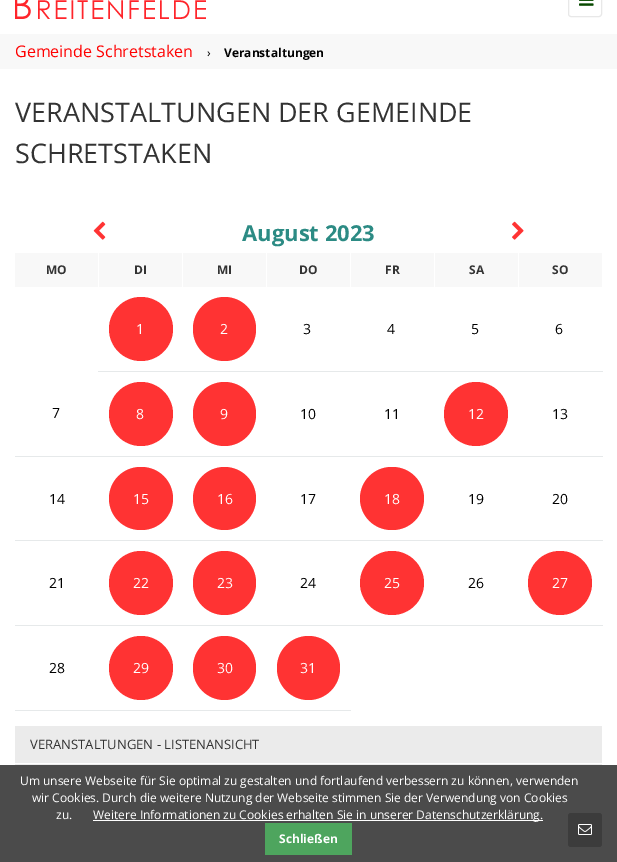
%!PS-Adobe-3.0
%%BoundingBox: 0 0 617 862
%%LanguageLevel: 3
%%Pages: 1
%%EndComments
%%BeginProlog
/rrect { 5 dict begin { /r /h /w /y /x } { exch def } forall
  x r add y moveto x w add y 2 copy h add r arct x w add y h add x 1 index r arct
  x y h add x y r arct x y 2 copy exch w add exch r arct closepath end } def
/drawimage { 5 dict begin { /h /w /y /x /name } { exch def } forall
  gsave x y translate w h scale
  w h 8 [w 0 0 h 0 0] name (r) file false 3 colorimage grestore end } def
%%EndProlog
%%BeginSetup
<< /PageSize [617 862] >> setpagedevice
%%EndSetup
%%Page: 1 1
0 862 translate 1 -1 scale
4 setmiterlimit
1 setgray
0 0 617 862 rectfill
(images/1.raw) 15 0 191 19 drawimage
0.91 setgray
568.5 -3.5 33 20 2.5 rrect stroke
(images/2.raw) 579 0 15 6 drawimage
0.973 setgray
0 34 617 35 rectfill
(images/3.raw) 93 221 13 19 drawimage
(images/4.raw) 512 221 12 19 drawimage
15 253 83 34 rectfill
99 253 83 34 rectfill
183 253 83 34 rectfill
267 253 83 34 rectfill
351 253 83 34 rectfill
435 253 83 34 rectfill
519 253 83 34 rectfill
1 0.2 0.2 setrgbcolor
newpath 141 329 32 0 360 arc closepath fill
193 297 63 64 31.5 rrect fill
0.902 0.914 0.918 setrgbcolor
98 371 505 1 rectfill
1 0.2 0.2 setrgbcolor
newpath 141 414 32 0 360 arc closepath fill
193 382 63 64 31.5 rrect fill
newpath 476 414 32 0 360 arc closepath fill
0.902 0.914 0.918 setrgbcolor
15 456 588 1 rectfill
1 0.2 0.2 setrgbcolor
109 467 64 63 31.5 rrect fill
newpath 224.5 498.5 31.5 0 360 arc closepath fill
360 467 64 63 31.5 rrect fill
0.902 0.914 0.918 setrgbcolor
15 540 588 1 rectfill
1 0.2 0.2 setrgbcolor
newpath 141 583 32 0 360 arc closepath fill
193 551 63 64 31.5 rrect fill
newpath 392 583 32 0 360 arc closepath fill
0.902 0.914 0.918 setrgbcolor
15 625 588 1 rectfill
1 0.2 0.2 setrgbcolor
newpath 560 583 32 0 360 arc closepath fill
newpath 141 668 32 0 360 arc closepath fill
193 636 63 64 31.5 rrect fill
0.902 0.914 0.918 setrgbcolor
15 710 336 1 rectfill
1 0.2 0.2 setrgbcolor
277 636 63 64 31.5 rrect fill
0.922 setgray
15 726 587 37 rectfill
15 764 587 1 rectfill
0.294 setgray
0 765 617 97 rectfill
1 setgray
93 820 450 1 rectfill
0.306 0.647 0.369 setrgbcolor
265 823 87 32 rectfill
0.235 setgray
568 813 34 34 3 rrect fill
(images/5.raw) 578 824 14 11 drawimage
/OpenSans-Regular [16 0 0 -16 0 0] selectfont
1 0 0 setrgbcolor
15 57 moveto (Gemeinde Schretstaken) show
/OpenSans-Regular [12 0 0 -12 0 0] selectfont
0 setgray
207 57 moveto (›) show
/OpenSans-Bold [12 0 0 -12 0 0] selectfont
224 57 moveto (Veranstaltungen) show
/OpenSans-Regular [27 0 0 -27 0 0] selectfont
0.2 setgray
15 122 moveto (VERANSTALTUNGEN DER GEMEINDE) show
15 163 moveto (SCHRETSTAKEN) show
/OpenSans-Bold [22 0 0 -22 0 0] selectfont
0.173 0.545 0.518 setrgbcolor
242 241 moveto (August 2023) show
/OpenSans-Bold [12 0 0 -12 0 0] selectfont
0.2 setgray
46 274 moveto (MO) show
134 274 moveto (DI) show
217 274 moveto (MI) show
299 274 moveto (DO) show
385 274 moveto (FR) show
469 274 moveto (SA) show
552 274 moveto (SO) show
/OpenSans-Regular [14 0 0 -14 0 0] selectfont
1 setgray
136 334 moveto (1) show
220 334 moveto (2) show
0 setgray
303 334 moveto (3) show
387 334 moveto (4) show
471 334 moveto (5) show
555 334 moveto (6) show
52 418 moveto (7) show
1 setgray
136 419 moveto (8) show
220 419 moveto (9) show
0 setgray
300 419 moveto (10) show
384 419 moveto (11) show
1 setgray
468 419 moveto (12) show
0 setgray
552 419 moveto (13) show
49 504 moveto (14) show
1 setgray
133 504 moveto (15) show
217 504 moveto (16) show
0 setgray
300 504 moveto (17) show
1 setgray
384 504 moveto (18) show
0 setgray
468 504 moveto (19) show
552 504 moveto (20) show
49 588 moveto (21) show
1 setgray
133 588 moveto (22) show
217 588 moveto (23) show
0 setgray
300 588 moveto (24) show
1 setgray
384 588 moveto (25) show
0 setgray
468 588 moveto (26) show
1 setgray
552 588 moveto (27) show
0 setgray
49 673 moveto (28) show
1 setgray
133 673 moveto (29) show
217 673 moveto (30) show
300 673 moveto (31) show
/OpenSans-Regular [13 0 0 -13 0 0] selectfont
0.2 setgray
30 749 moveto (VERANSTALTUNGEN - LISTENANSICHT) show
/OpenSans-Regular [12 0 0 -12 0 0] selectfont
1 setgray
20 785 moveto (Um unsere Webseite für Sie optimal zu gestalten und fortlaufend verbessern zu können, verwenden) show
32 802 moveto (wir Cookies. Durch die weitere Nutzung der Webseite stimmen Sie der Verwendung von Cookies) show
56 819 moveto (zu.) show
93 819 moveto (Weitere Informationen zu Cookies erhalten Sie in unserer Datenschutzerklärung.) show
/OpenSans-Bold [12 0 0 -12 0 0] selectfont
279 843 moveto (Schließen) show
showpage
%%EOF
